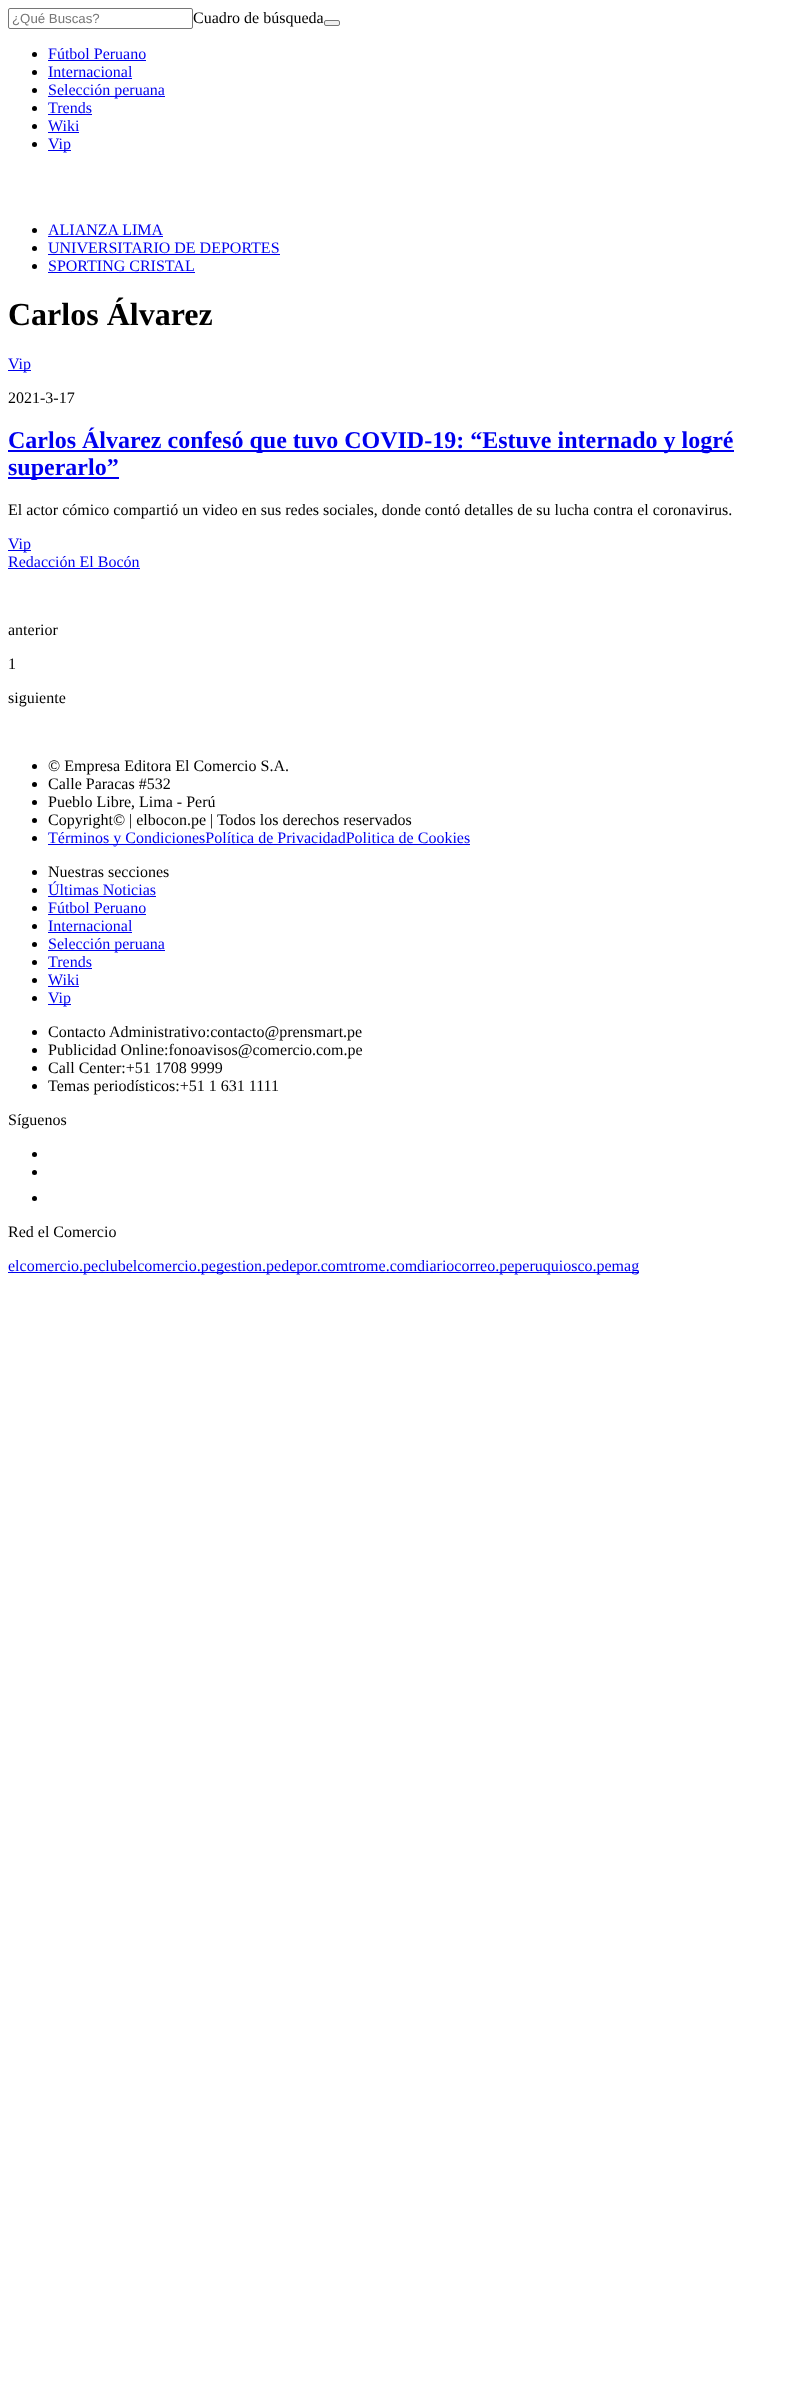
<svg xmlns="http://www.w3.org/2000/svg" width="809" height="2387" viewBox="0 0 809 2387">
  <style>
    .t1 { font: 13.25px Liberation Sans; fill: #757575; }
    .t2 { font: 16px Liberation Serif; fill: #000; }
    .t3 { font: 16px Liberation Serif; fill: #00e; }
    .t4 { font: bold 32px Liberation Serif; fill: #000; }
    .t5 { font: bold 24px Liberation Serif; fill: #00e; }
  </style>
  <rect width="100%" height="100%" fill="#fff"/>
  <rect x="8.5" y="8.5" width="184" height="20" rx="1.5" fill="none" stroke="#767676"/>
  <text x="12" y="23" class="t1">¿Qué Buscas?</text>
  <text x="193" y="23" class="t2">Cuadro de búsqueda</text>
  <rect x="324.5" y="20.5" width="15" height="5" rx="1.5" fill="#efefef" stroke="#767676"/>
  <circle cx="34.5" cy="54.5" r="2.5" fill="#000"/>
  <text x="48" y="59" class="t3">Fútbol Peruano</text>
  <rect x="48" y="60" width="98" height="1" fill="#00e"/>
  <circle cx="34.5" cy="72.5" r="2.5" fill="#000"/>
  <text x="48" y="77" class="t3">Internacional</text>
  <rect x="48" y="78" width="84" height="1" fill="#00e"/>
  <circle cx="34.5" cy="90.5" r="2.5" fill="#000"/>
  <rect x="48" y="96" width="117" height="1" fill="#00e"/>
  <text x="48" y="95" class="t3">Selección peruana</text>
  <circle cx="34.5" cy="108.5" r="2.5" fill="#000"/>
  <text x="48" y="113" class="t3">Trends</text>
  <rect x="48" y="114" width="44" height="1" fill="#00e"/>
  <circle cx="34.5" cy="126.5" r="2.5" fill="#000"/>
  <text x="48" y="131" class="t3">Wiki</text>
  <rect x="48" y="132" width="31" height="1" fill="#00e"/>
  <circle cx="34.5" cy="144.5" r="2.5" fill="#000"/>
  <rect x="48" y="150" width="23" height="1" fill="#00e"/>
  <text x="48" y="149" class="t3">Vip</text>
  <circle cx="34.5" cy="230.5" r="2.5" fill="#000"/>
  <text x="48" y="235" class="t3">ALIANZA LIMA</text>
  <rect x="48" y="236" width="115" height="1" fill="#00e"/>
  <circle cx="34.5" cy="248.5" r="2.5" fill="#000"/>
  <text x="48" y="253" class="t3">UNIVERSITARIO DE DEPORTES</text>
  <rect x="48" y="254" width="232" height="1" fill="#00e"/>
  <circle cx="34.5" cy="266.5" r="2.5" fill="#000"/>
  <text x="48" y="271" class="t3">SPORTING CRISTAL</text>
  <rect x="48" y="272" width="147" height="1" fill="#00e"/>
  <text x="8" y="325" class="t4">Carlos Álvarez</text>
  <rect x="8" y="370" width="23" height="1" fill="#00e"/>
  <text x="8" y="369" class="t3">Vip</text>
  <text x="8" y="403" class="t2">2021-3-17</text>
  <rect x="8" y="450" width="726" height="2" fill="#00e"/>
  <text x="8" y="448" class="t5">Carlos Álvarez confesó que tuvo COVID-19: “Estuve internado y logré</text>
  <rect x="8" y="477" width="111" height="2" fill="#00e"/>
  <text x="8" y="475" class="t5">superarlo”</text>
  <text x="8" y="515" class="t2">El actor cómico compartió un video en sus redes sociales, donde contó detalles de su lucha contra el coronavirus.</text>
  <rect x="8" y="550" width="23" height="1" fill="#00e"/>
  <text x="8" y="549" class="t3">Vip</text>
  <text x="8" y="567" class="t3">Redacción El Bocón</text>
  <rect x="8" y="568" width="132" height="1" fill="#00e"/>
  <text x="8" y="635" class="t2">anterior</text>
  <text x="8" y="669" class="t2">1</text>
  <text x="8" y="703" class="t2">siguiente</text>
  <circle cx="34.5" cy="766.5" r="2.5" fill="#000"/>
  <text x="48" y="771" class="t2">© Empresa Editora El Comercio S.A.</text>
  <circle cx="34.5" cy="784.5" r="2.5" fill="#000"/>
  <text x="48" y="789" class="t2">Calle Paracas #532</text>
  <circle cx="34.5" cy="802.5" r="2.5" fill="#000"/>
  <text x="48" y="807" class="t2">Pueblo Libre, Lima - Perú</text>
  <circle cx="34.5" cy="820.5" r="2.5" fill="#000"/>
  <text x="48" y="825" class="t2">Copyright© | elbocon.pe | Todos los derechos reservados</text>
  <circle cx="34.5" cy="838.5" r="2.5" fill="#000"/>
  <rect x="48" y="844" width="422" height="1" fill="#00e"/>
  <text x="48" y="843" class="t3">Términos y CondicionesPolítica de PrivacidadPolitica de Cookies</text>
  <circle cx="34.5" cy="872.5" r="2.5" fill="#000"/>
  <text x="48" y="877" class="t2">Nuestras secciones</text>
  <circle cx="34.5" cy="890.5" r="2.5" fill="#000"/>
  <text x="48" y="895" class="t3">Últimas Noticias</text>
  <rect x="48" y="896" width="108" height="1" fill="#00e"/>
  <circle cx="34.5" cy="908.5" r="2.5" fill="#000"/>
  <text x="48" y="913" class="t3">Fútbol Peruano</text>
  <rect x="48" y="914" width="98" height="1" fill="#00e"/>
  <circle cx="34.5" cy="926.5" r="2.5" fill="#000"/>
  <text x="48" y="931" class="t3">Internacional</text>
  <rect x="48" y="932" width="84" height="1" fill="#00e"/>
  <circle cx="34.5" cy="944.5" r="2.5" fill="#000"/>
  <rect x="48" y="950" width="117" height="1" fill="#00e"/>
  <text x="48" y="949" class="t3">Selección peruana</text>
  <circle cx="34.5" cy="962.5" r="2.5" fill="#000"/>
  <text x="48" y="967" class="t3">Trends</text>
  <rect x="48" y="968" width="44" height="1" fill="#00e"/>
  <circle cx="34.5" cy="980.5" r="2.5" fill="#000"/>
  <text x="48" y="985" class="t3">Wiki</text>
  <rect x="48" y="986" width="31" height="1" fill="#00e"/>
  <circle cx="34.5" cy="998.5" r="2.5" fill="#000"/>
  <rect x="48" y="1004" width="23" height="1" fill="#00e"/>
  <text x="48" y="1003" class="t3">Vip</text>
  <circle cx="34.5" cy="1032.5" r="2.5" fill="#000"/>
  <text x="48" y="1037" class="t2">Contacto Administrativo:contacto@prensmart.pe</text>
  <circle cx="34.5" cy="1050.5" r="2.5" fill="#000"/>
  <text x="48" y="1055" class="t2">Publicidad Online:fonoavisos@comercio.com.pe</text>
  <circle cx="34.5" cy="1068.5" r="2.5" fill="#000"/>
  <text x="48" y="1073" class="t2">Call Center:+51 1708 9999</text>
  <circle cx="34.5" cy="1086.5" r="2.5" fill="#000"/>
  <text x="48" y="1091" class="t2">Temas periodísticos:+51 1 631 1111</text>
  <text x="8" y="1125" class="t2">Síguenos</text>
  <circle cx="34.5" cy="1154.5" r="2.5" fill="#000"/>
  <circle cx="34.5" cy="1172.5" r="2.5" fill="#000"/>
  <circle cx="34.5" cy="1198.5" r="2.5" fill="#000"/>
  <text x="8" y="1237" class="t2">Red el Comercio</text>
  <rect x="8" y="1272" width="340" height="1" fill="#00e"/>
  <text x="8" y="1271" class="t3">elcomercio.peclubelcomercio.pegestion.pedepor.comtrome.com</text>
  <rect x="348" y="1272" width="291" height="1" fill="#00e"/>
  <text x="417" y="1271" class="t3">diariocorreo.peperuquiosco.pemag</text>
</svg>
